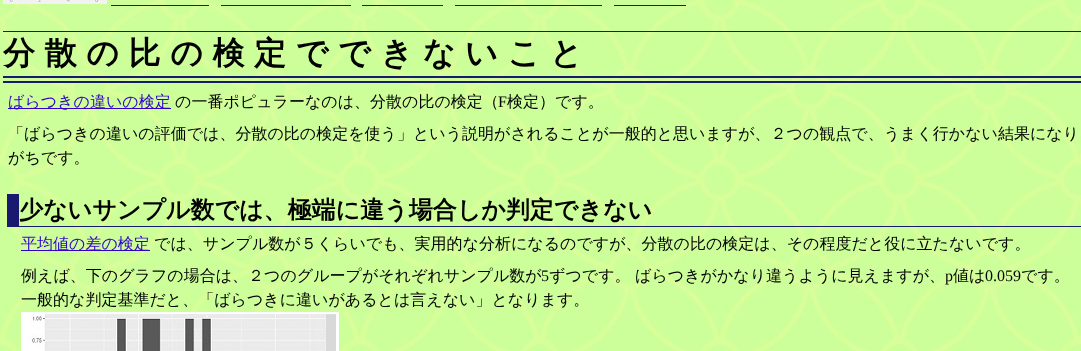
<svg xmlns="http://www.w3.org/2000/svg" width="1081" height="351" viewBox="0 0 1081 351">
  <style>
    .t1 { font: bold 32px WenQuanYi Zen Hei; letter-spacing: 9.6px; fill: #000; }
    .t2 { font: 500 16px WenQuanYi Zen Hei; fill: #30c; }
    .t3 { font: 500 16px WenQuanYi Zen Hei; fill: #000; }
    .t4 { font: 16px Liberation Serif; fill: #000; }
    .t5 { font: bold 24px WenQuanYi Zen Hei; fill: #000; }
  </style>
  <rect width="100%" height="100%" fill="#fff"/>
  <image x="0" y="0" width="1081" height="351" href="images/1.png"/>
  <image x="3" y="0" width="104" height="4" href="images/2.png"/>
  <rect x="111" y="5" width="98" height="1" fill="#30c"/>
  <rect x="221" y="5" width="130" height="1" fill="#30c"/>
  <rect x="362" y="5" width="81" height="1" fill="#30c"/>
  <rect x="455" y="5" width="147" height="1" fill="#30c"/>
  <rect x="614" y="5" width="72" height="1" fill="#30c"/>
  <rect x="3" y="31" width="1078" height="1" fill="#191970"/>
  <rect x="3" y="76" width="1078" height="2" fill="#191970"/>
  <rect x="3" y="81" width="1078" height="2" fill="#191970"/>
  <text x="3" y="64" class="t1">分散の比の検定でできないこと</text>
  <rect x="8" y="108" width="163" height="1" fill="#30c"/>
  <text x="8" y="107" class="t2">ばらつきの違いの検定</text>
  <text x="175" y="107" class="t3">の一番ポピュラーなのは、分散の比の検定（</text>
  <text x="498" y="107" class="t4">F</text>
  <text x="507" y="107" class="t3">検定）です。</text>
  <text x="8" y="139" class="t3">「ばらつきの違いの評価では、分散の比の検定を使う」という説明がされることが一般的と思いますが、２つの観点で、うまく行かない結果になり</text>
  <text x="8" y="163" class="t3">がちです。</text>
  <rect x="19" y="226" width="1062" height="1" fill="#191970"/>
  <rect x="7" y="194" width="12" height="33" fill="#191970"/>
  <text x="19" y="218" class="t5">少ないサンプル数では、極端に違う場合しか判定できない</text>
  <rect x="21" y="250" width="129" height="1" fill="#30c"/>
  <text x="21" y="249" class="t2">平均値の差の検定</text>
  <text x="154" y="249" class="t3">では、サンプル数が５くらいでも、実用的な分析になるのですが、分散の比の検定は、その程度だと役に立たないです。</text>
  <text x="21" y="281" class="t3">例えば、下のグラフの場合は、２つのグループがそれぞれサンプル数が</text>
  <text x="541" y="281" class="t4">5</text>
  <text x="549" y="281" class="t3">ずつです。</text>
  <text x="635" y="281" class="t3">ばらつきがかなり違うように見えますが、</text>
  <text x="945" y="281" class="t4">p</text>
  <text x="953" y="281" class="t3">値は</text>
  <text x="985" y="281" class="t4">0.059</text>
  <text x="1021" y="281" class="t3">です。</text>
  <text x="21" y="305" class="t3">一般的な判定基準だと、「ばらつきに違いがあるとは言えない」となります。</text>
  <image x="21" y="312" width="318" height="39" href="images/3.png"/>
</svg>
